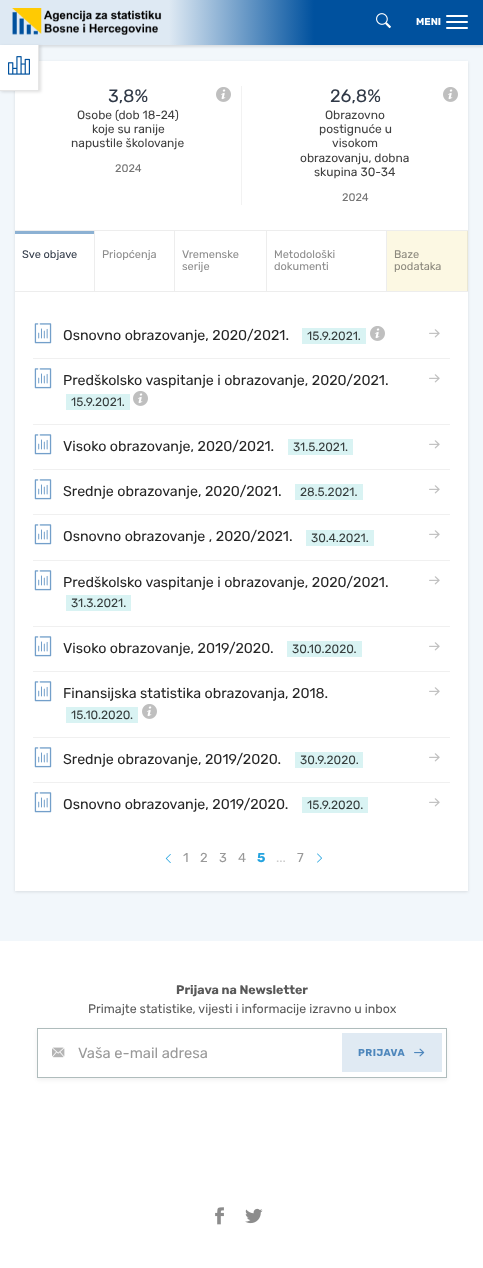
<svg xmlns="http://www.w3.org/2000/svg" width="483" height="1268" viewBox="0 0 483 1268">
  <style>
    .t1 { font: bold 10px Rubik; fill: #fff; }
    .t2 { font: 18px Rubik; fill: #303947; }
    .t3 { font: 12px Rubik; fill: #404040; }
    .t4 { font: 11px Rubik; fill: #737373; }
    .t5 { font: 11px Rubik; fill: #303947; }
    .t6 { font: 11px Rubik; fill: #8c8c8c; }
    .t7 { font: 11px Rubik; fill: #8b887d; }
    .t8 { font: 14.25px Rubik; fill: #262626; }
    .t9 { font: 12px Rubik; fill: #363d3d; }
    .t10 { font: 13px Rubik; fill: #999; }
    .t11 { font: bold 13px Rubik; fill: #24a3df; }
    .t12 { font: 13px Rubik; fill: #ccc; }
    .t13 { font: bold 12.4px Rubik; fill: #595959; }
    .t14 { font: 12.4px Rubik; fill: #595959; }
    .t15 { font: 14.75px Rubik; fill: #999; }
    .t16 { font: bold 10px Rubik; letter-spacing: 0.5px; fill: #4e87bc; }
  </style>
  <defs>
    <linearGradient id="g1" gradientUnits="userSpaceOnUse" x1="0" y1="23" x2="483" y2="22"><stop offset="0.35" stop-color="#dee9f3"/><stop offset="0.65" stop-color="#00519e"/></linearGradient>
    <clipPath id="clip1"><path d="M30 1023H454V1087H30ZM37 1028H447V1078H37Z" clip-rule="evenodd"/></clipPath>
  </defs>
  <rect width="100%" height="100%" fill="#f2f7fb"/>
  <rect x="0" y="2" width="483" height="45" fill="#0000001a" filter="blur(1px)"/>
  <rect x="0" y="0" width="483" height="45" fill="url(#g1)"/>
  <image x="12" y="8" width="150" height="27" href="images/1.png"/>
  <image x="376" y="13" width="15" height="16" href="images/2.png"/>
  <text x="416" y="25" class="t1">MENI</text>
  <rect x="446" y="15" width="22" height="2" rx="1" fill="#fff"/>
  <rect x="446" y="21" width="22" height="2" rx="1" fill="#fff"/>
  <rect x="446" y="27" width="22" height="2" rx="1" fill="#fff"/>
  <rect x="15" y="62" width="453" height="830" fill="#0000001a" filter="blur(1.5px)"/>
  <rect x="15" y="61" width="453" height="830" fill="#fff"/>
  <rect x="1" y="46" width="40" height="46" fill="#0000001f" filter="blur(1.5px)"/>
  <rect x="0" y="45" width="39" height="46" fill="#fff"/>
  <path d="M39 45V91L38 90V45Z" fill="#e6e6e6"/>
  <path d="M39 91H-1V90H38Z" fill="#0000001a"/>
  <image x="8" y="56" width="22" height="19" href="images/3.png"/>
  <text x="108" y="102" class="t2">3,8%</text>
  <image x="216" y="87" width="15" height="15" href="images/4.png"/>
  <text x="77" y="119" class="t3">Osobe (dob 18-24)</text>
  <text x="92" y="133" class="t3">koje su ranije</text>
  <text x="71" y="147" class="t3">napustile školovanje</text>
  <text x="115" y="172" class="t4">2024</text>
  <rect x="241" y="86" width="1" height="119" fill="#f2f2f2"/>
  <text x="330" y="102" class="t2">26,8%</text>
  <image x="443" y="87" width="15" height="15" href="images/4.png"/>
  <text x="325" y="119" class="t3">Obrazovno</text>
  <text x="319" y="133" class="t3">postignuće u</text>
  <text x="332" y="147" class="t3">visokom</text>
  <text x="300" y="162" class="t3">obrazovanju, dobna</text>
  <text x="314" y="176" class="t3">skupina 30-34</text>
  <text x="342" y="201" class="t4">2024</text>
  <rect x="15" y="230" width="453" height="1" fill="#ededed"/>
  <rect x="15" y="291" width="453" height="1" fill="#ededed"/>
  <rect x="94" y="231" width="1" height="60" fill="#ededed"/>
  <rect x="15" y="231" width="79" height="3" fill="#8cb1d3"/>
  <text x="22" y="258" class="t5">Sve objave</text>
  <rect x="174" y="231" width="1" height="60" fill="#ededed"/>
  <text x="102" y="258" class="t6">Priopćenja</text>
  <rect x="266" y="231" width="1" height="60" fill="#ededed"/>
  <text x="182" y="258" class="t6">Vremenske</text>
  <text x="182" y="270" class="t6">serije</text>
  <rect x="386" y="231" width="1" height="60" fill="#ededed"/>
  <text x="274" y="258" class="t6">Metodološki</text>
  <text x="274" y="270" class="t6">dokumenti</text>
  <rect x="387" y="231" width="80" height="60" fill="#fcf8e3"/>
  <rect x="467" y="231" width="1" height="60" fill="#eae7d3"/>
  <text x="394" y="258" class="t7">Baze</text>
  <text x="394" y="270" class="t7">podataka</text>
  <image x="34" y="323" width="18" height="21" href="images/5.png"/>
  <text x="63" y="340" class="t8">Osnovno obrazovanje, 2020/2021.</text>
  <rect x="302" y="328" width="64" height="16" fill="#d9f3f3"/>
  <text x="307" y="340" class="t9">15.9.2021.</text>
  <image x="370" y="326" width="15" height="15" href="images/4.png"/>
  <image x="429" y="329" width="11" height="9" href="images/6.png"/>
  <rect x="33" y="358" width="417" height="1" fill="#f0f0f0"/>
  <image x="34" y="368" width="18" height="21" href="images/5.png"/>
  <text x="63" y="385" class="t8">Predškolsko vaspitanje i obrazovanje, 2020/2021.</text>
  <image x="429" y="374" width="11" height="9" href="images/6.png"/>
  <rect x="66" y="394" width="64" height="16" fill="#d9f3f3"/>
  <text x="71" y="406" class="t9">15.9.2021.</text>
  <image x="133" y="391" width="15" height="15" href="images/4.png"/>
  <rect x="33" y="424" width="417" height="1" fill="#f0f0f0"/>
  <image x="34" y="434" width="18" height="21" href="images/5.png"/>
  <text x="63" y="451" class="t8">Visoko obrazovanje, 2020/2021.</text>
  <rect x="288" y="439" width="65" height="16" fill="#d9f3f3"/>
  <text x="293" y="451" class="t9">31.5.2021.</text>
  <image x="429" y="440" width="11" height="9" href="images/6.png"/>
  <rect x="33" y="469" width="417" height="1" fill="#f0f0f0"/>
  <image x="34" y="479" width="18" height="21" href="images/5.png"/>
  <text x="63" y="496" class="t8">Srednje obrazovanje, 2020/2021.</text>
  <rect x="295" y="484" width="68" height="16" fill="#d9f3f3"/>
  <text x="300" y="496" class="t9">28.5.2021.</text>
  <image x="429" y="485" width="11" height="9" href="images/6.png"/>
  <rect x="33" y="514" width="417" height="1" fill="#f0f0f0"/>
  <image x="34" y="524" width="18" height="21" href="images/5.png"/>
  <text x="63" y="541" class="t8">Osnovno obrazovanje , 2020/2021.</text>
  <rect x="306" y="530" width="68" height="16" fill="#d9f3f3"/>
  <text x="311" y="542" class="t9">30.4.2021.</text>
  <image x="429" y="530" width="11" height="9" href="images/6.png"/>
  <rect x="33" y="560" width="417" height="1" fill="#f0f0f0"/>
  <image x="34" y="570" width="18" height="21" href="images/5.png"/>
  <text x="63" y="587" class="t8">Predškolsko vaspitanje i obrazovanje, 2020/2021.</text>
  <image x="429" y="576" width="11" height="9" href="images/6.png"/>
  <rect x="66" y="595" width="65" height="16" fill="#d9f3f3"/>
  <text x="71" y="607" class="t9">31.3.2021.</text>
  <rect x="33" y="626" width="417" height="1" fill="#f0f0f0"/>
  <image x="34" y="636" width="18" height="21" href="images/5.png"/>
  <text x="63" y="653" class="t8">Visoko obrazovanje, 2019/2020.</text>
  <rect x="287" y="641" width="75" height="16" fill="#d9f3f3"/>
  <text x="292" y="653" class="t9">30.10.2020.</text>
  <image x="429" y="642" width="11" height="9" href="images/6.png"/>
  <rect x="33" y="671" width="417" height="1" fill="#f0f0f0"/>
  <image x="34" y="681" width="18" height="21" href="images/5.png"/>
  <text x="63" y="698" class="t8">Finansijska statistika obrazovanja, 2018.</text>
  <image x="429" y="687" width="11" height="9" href="images/6.png"/>
  <rect x="66" y="707" width="72" height="16" fill="#d9f3f3"/>
  <text x="71" y="719" class="t9">15.10.2020.</text>
  <image x="142" y="704" width="15" height="15" href="images/4.png"/>
  <rect x="33" y="737" width="417" height="1" fill="#f0f0f0"/>
  <image x="34" y="747" width="18" height="21" href="images/5.png"/>
  <text x="63" y="764" class="t8">Srednje obrazovanje, 2019/2020.</text>
  <rect x="295" y="752" width="68" height="16" fill="#d9f3f3"/>
  <text x="300" y="764" class="t9">30.9.2020.</text>
  <image x="429" y="753" width="11" height="9" href="images/6.png"/>
  <rect x="33" y="782" width="417" height="1" fill="#f0f0f0"/>
  <image x="34" y="792" width="18" height="21" href="images/5.png"/>
  <text x="63" y="809" class="t8">Osnovno obrazovanje, 2019/2020.</text>
  <rect x="302" y="797" width="66" height="16" fill="#d9f3f3"/>
  <text x="307" y="809" class="t9">15.9.2020.</text>
  <image x="429" y="798" width="11" height="9" href="images/6.png"/>
  <image x="165" y="854" width="6" height="9" href="images/7.png"/>
  <text x="183" y="862" class="t10">1</text>
  <text x="200" y="862" class="t10">2</text>
  <text x="219" y="862" class="t10">3</text>
  <text x="238" y="862" class="t10">4</text>
  <text x="257" y="862" class="t11">5</text>
  <text x="276" y="862" class="t12">...</text>
  <text x="297" y="862" class="t10">7</text>
  <image x="317" y="853" width="5" height="10" href="images/8.png"/>
  <rect x="0" y="941" width="483" height="327" fill="#fff"/>
  <text x="176" y="994" class="t13">Prijava na Newsletter</text>
  <text x="88" y="1013" class="t14">Primajte statistike, vijesti i informacije izravno u inbox</text>
  <g clip-path="url(#clip1)">
    <rect x="37" y="1030" width="410" height="50" fill="#0000000f" filter="blur(2px)"/>
  </g>
  <rect x="37.5" y="1028.5" width="409" height="49" fill="none" stroke="#afbcbc"/>
  <image x="52" y="1047" width="13" height="11" href="images/9.png"/>
  <text x="78" y="1058" class="t15">Vaša e-mail adresa</text>
  <rect x="342" y="1033" width="100" height="39" fill="#e0eaf3"/>
  <text x="358" y="1056" class="t16">PRIJAVA</text>
  <image x="414" y="1048" width="11" height="9" href="images/10.png"/>
  <image x="215" y="1207" width="9" height="18" href="images/11.png"/>
  <image x="245" y="1208" width="18" height="16" href="images/12.png"/>
</svg>
